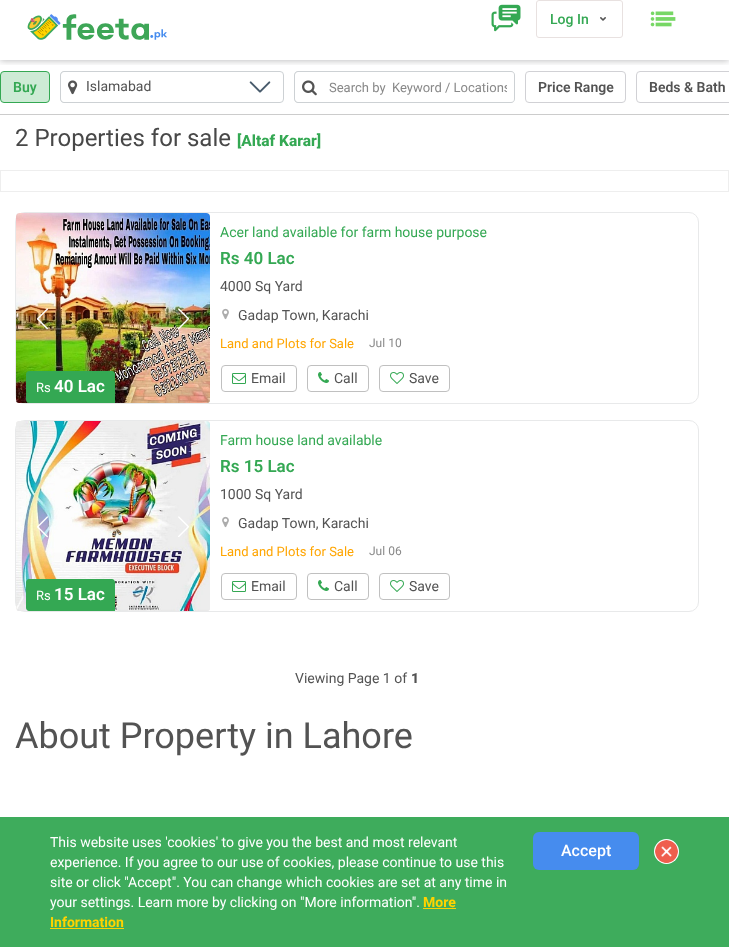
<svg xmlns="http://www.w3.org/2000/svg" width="729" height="947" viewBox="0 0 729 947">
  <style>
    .t1 { font: 500 14px Roboto; fill: #34a853; }
    .t2 { font: 600 14px Roboto; fill: #34a853; }
    .t3 { font: 14px Roboto; fill: #535353; }
    .t4 { font: 13px Roboto; fill: #888; }
    .t5 { font: 600 14px Roboto; fill: #535353; }
    .t6 { font: 24px Roboto; fill: #484848; }
    .t7 { font: 800 15.5px Roboto; fill: #34a853; }
    .t8 { font: 14px Roboto; fill: #34a853; }
    .t9 { font: 600 17px Roboto; fill: #34a853; }
    .t10 { font: 13px Roboto; fill: #ffa500; }
    .t11 { font: 12px Roboto; fill: #888; }
    .t12 { font: 13px Roboto; fill: #fff; }
    .t13 { font: 600 17px Roboto; fill: #fff; }
    .t14 { font: 800 14px Roboto; fill: #535353; }
    .t15 { font: 36px Roboto; fill: #535353; }
    .t16 { font: 14px Roboto; fill: #fff; }
    .t17 { font: bold 14px Roboto; fill: #ffd300; }
    .t18 { font: 500 16px Roboto; fill: #fff; }
  </style>
  <defs>
    <clipPath id="clip1"><rect x="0" y="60" width="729" height="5"/></clipPath>
    <clipPath id="clip2"><rect x="294" y="80" width="213" height="15"/></clipPath>
  </defs>
  <rect width="100%" height="100%" fill="#fff"/>
  <g clip-path="url(#clip1)">
    <rect x="0" y="1" width="729" height="60" fill="#20212447" filter="blur(3px)"/>
  </g>
  <image x="27" y="14" width="140" height="26" href="images/1.png"/>
  <image x="491" y="4" width="30" height="28" href="images/2.png"/>
  <rect x="536.5" y="0.5" width="86" height="37" rx="2.5" fill="none" stroke="#e8e1e0"/>
  <text x="550" y="24" class="t1">Log In</text>
  <image x="600" y="17" width="6" height="4" href="images/3.png"/>
  <image x="650" y="11" width="26" height="16" href="images/4.png"/>
  <rect x="0" y="114" width="729" height="1" fill="#ccc"/>
  <rect x="0.5" y="71.5" width="49" height="31" rx="3.5" fill="#cdebd5" stroke="#34a853"/>
  <text x="13" y="92" class="t2">Buy</text>
  <image x="249" y="81" width="22" height="12" href="images/6.png"/>
  <rect x="60.5" y="71.5" width="223" height="31" rx="3.5" fill="none" stroke="#cdd1d4"/>
  <rect x="60" y="71" width="22" height="32" fill="#fff"/>
  <path d="M64 71H82V103H64C62 103 60 101 60 99V75C60 73 62 71 64 71ZM64 72H82V102H64C62.5 102 61 100.5 61 99V75C61 73.5 62.5 72 64 72Z" fill="#cdd1d4" fill-rule="evenodd"/>
  <image x="68" y="80" width="10" height="15" href="images/5.png"/>
  <text x="86" y="91" class="t3">Islamabad</text>
  <path d="M294 71H511C513 71 515 73 515 75V99C515 101 513 103 511 103H294ZM294 72H511C513 72 514 73 514 75V99C514 101 513 102 511 102H294Z" fill="#cdd1d4" fill-rule="evenodd"/>
  <rect x="294" y="71" width="28" height="32" fill="#fff"/>
  <path d="M298 71H322V103H298C296 103 294 101 294 99V75C294 73 296 71 298 71ZM298 72H322V102H298C296.5 102 295 100.5 295 99V75C295 73.5 296.5 72 298 72Z" fill="#cdd1d4" fill-rule="evenodd"/>
  <image x="302" y="80" width="15" height="16" href="images/7.png"/>
  <g clip-path="url(#clip2)">
    <text x="329" y="92" class="t4" xml:space="preserve">Search by  Keyword / Locations</text>
  </g>
  <rect x="525.5" y="71.5" width="100" height="31" rx="3.5" fill="none" stroke="#d1d1d5"/>
  <text x="538" y="92" class="t5">Price Range</text>
  <rect x="636.5" y="71.5" width="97" height="31" rx="3.5" fill="none" stroke="#d1d1d5"/>
  <text x="649" y="92" class="t5">Beds &amp; Bath</text>
  <text x="15" y="146" class="t6">2 Properties for sale</text>
  <text x="237" y="146" class="t7">[Altaf Karar]</text>
  <rect x="0.5" y="170.5" width="728" height="21" fill="none" stroke="#eee"/>
  <rect x="15.5" y="212.5" width="683" height="191" rx="9.5" fill="none" stroke="#e8e9ea"/>
  <text x="220" y="237" class="t8">Acer land available for farm house purpose</text>
  <text x="220" y="264" class="t9">Rs 40 Lac</text>
  <text x="220" y="291" class="t3">4000 Sq Yard</text>
  <image x="222" y="308" width="7" height="12" href="images/8.png"/>
  <text x="238" y="320" class="t3">Gadap Town, Karachi</text>
  <text x="220" y="348" class="t10">Land and Plots for Sale</text>
  <text x="369" y="347" class="t11">Jul 10</text>
  <rect x="16" y="213" width="194" height="190" rx="3" fill="#efeeec"/>
  <image x="16" y="213" width="194" height="190" href="images/9.png"/>
  <image x="36" y="308" width="12" height="22" href="images/10.png"/>
  <image x="177" y="308" width="13" height="22" href="images/11.png"/>
  <path d="M29 371H112C113.5 371 115 372.5 115 374V403H29C27.5 403 26 401.5 26 400V374C26 372.5 27.5 371 29 371Z" fill="#34a853"/>
  <text x="36" y="392" class="t12">Rs</text>
  <text x="54" y="392" class="t13">40 Lac</text>
  <rect x="221.5" y="365.5" width="75" height="26" rx="3.5" fill="none" stroke="#c0c0c0"/>
  <image x="232" y="373" width="14" height="11" href="images/12.png"/>
  <text x="251" y="383" class="t3">Email</text>
  <rect x="307.5" y="365.5" width="61" height="26" rx="3.5" fill="none" stroke="#c0c0c0"/>
  <image x="318" y="372" width="11" height="11" href="images/13.png"/>
  <text x="334" y="383" class="t3">Call</text>
  <rect x="379.5" y="365.5" width="70" height="26" rx="3.5" fill="none" stroke="#c0c0c0"/>
  <image x="390" y="372" width="14" height="12" href="images/14.png"/>
  <text x="409" y="383" class="t3">Save</text>
  <rect x="15.5" y="420.5" width="683" height="191" rx="9.5" fill="none" stroke="#e8e9ea"/>
  <text x="220" y="445" class="t8">Farm house land available</text>
  <text x="220" y="472" class="t9">Rs 15 Lac</text>
  <text x="220" y="499" class="t3">1000 Sq Yard</text>
  <image x="222" y="516" width="7" height="12" href="images/8.png"/>
  <text x="238" y="528" class="t3">Gadap Town, Karachi</text>
  <text x="220" y="556" class="t10">Land and Plots for Sale</text>
  <text x="369" y="555" class="t11">Jul 06</text>
  <rect x="16" y="421" width="194" height="190" rx="3" fill="#efeeec"/>
  <image x="16" y="421" width="194" height="190" href="images/15.png"/>
  <image x="37" y="516" width="11" height="22" href="images/16.png"/>
  <image x="178" y="516" width="11" height="21" href="images/17.png"/>
  <path d="M29 579H112C113.5 579 115 580.5 115 582V611H29C27.5 611 26 609.5 26 608V582C26 580.5 27.5 579 29 579Z" fill="#34a853"/>
  <text x="36" y="600" class="t12">Rs</text>
  <text x="54" y="600" class="t13">15 Lac</text>
  <rect x="221.5" y="573.5" width="75" height="26" rx="3.5" fill="none" stroke="#c0c0c0"/>
  <image x="232" y="581" width="14" height="11" href="images/12.png"/>
  <text x="251" y="591" class="t3">Email</text>
  <rect x="307.5" y="573.5" width="61" height="26" rx="3.5" fill="none" stroke="#c0c0c0"/>
  <image x="318" y="580" width="11" height="11" href="images/13.png"/>
  <text x="334" y="591" class="t3">Call</text>
  <rect x="379.5" y="573.5" width="70" height="26" rx="3.5" fill="none" stroke="#c0c0c0"/>
  <image x="390" y="580" width="14" height="12" href="images/14.png"/>
  <text x="409" y="591" class="t3">Save</text>
  <text x="295" y="683" class="t3">Viewing Page 1 of</text>
  <text x="411" y="683" class="t14">1</text>
  <text x="15" y="748" class="t15">About Property in Lahore</text>
  <rect x="0" y="817" width="729" height="130" fill="#34a853f2"/>
  <text x="50" y="847" class="t16">This website uses 'cookies' to give you the best and most relevant</text>
  <text x="50" y="867" class="t16">experience. If you agree to our use of cookies, please continue to use this</text>
  <text x="50" y="887" class="t16">site or click "Accept". You can change which cookies are set at any time in</text>
  <text x="50" y="907" class="t16">your settings. Learn more by clicking on "More information".</text>
  <text x="423" y="907" class="t17">More</text>
  <rect x="423" y="908" width="33" height="1" fill="#ffd300"/>
  <text x="50" y="927" class="t17">Information</text>
  <rect x="50" y="928" width="74" height="1" fill="#ffd300"/>
  <rect x="533" y="832" width="106" height="38" rx="6" fill="#468cee"/>
  <text x="561" y="856" class="t18">Accept</text>
  <circle cx="666.5" cy="851.5" r="12.5" fill="#fff"/>
  <image x="655" y="840" width="23" height="23" href="images/18.png"/>
</svg>
